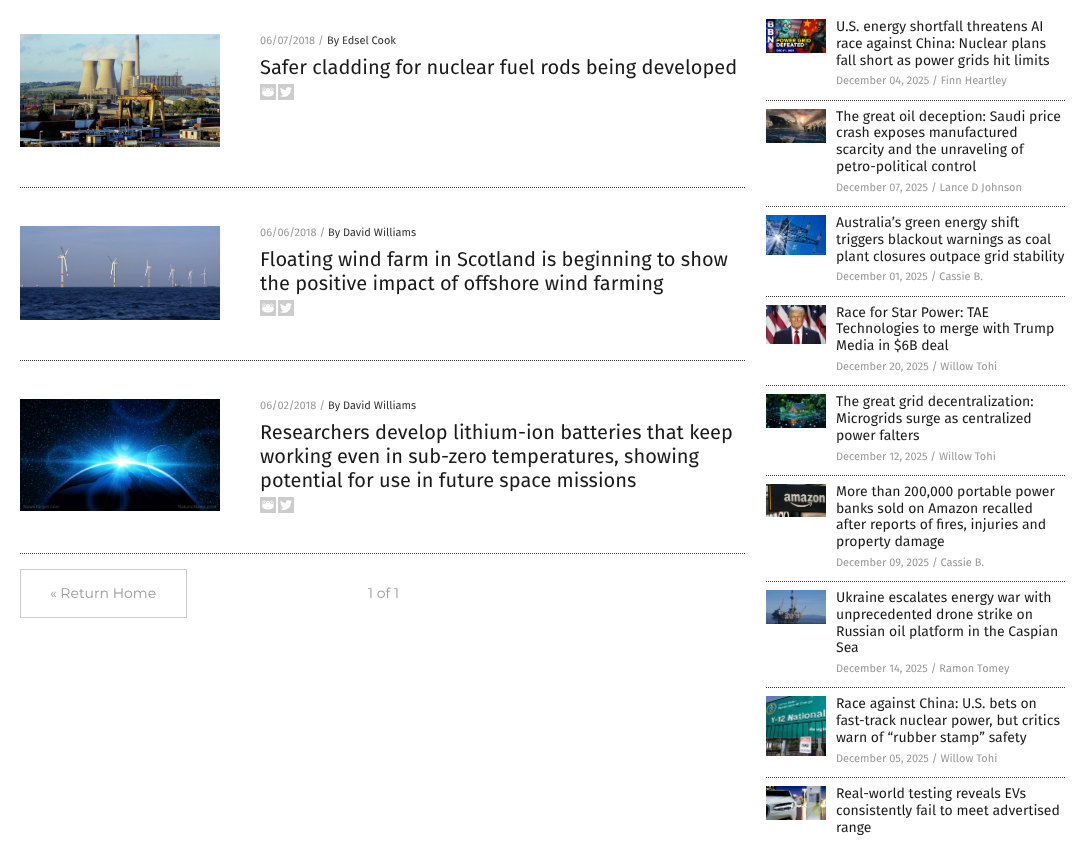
<svg xmlns="http://www.w3.org/2000/svg" width="1086" height="844" viewBox="0 0 1086 844">
  <style>
    .t1 { font: 11px Fira Sans; fill: #999; }
    .t2 { font: 11px Fira Sans; fill: #333; }
    .t3 { font: 20px Fira Sans; fill: #1a1a1a; }
    .t4 { font: 14px Montserrat; fill: #999; }
    .t5 { font: 14px Fira Sans; fill: #1a1a1a; }
  </style>
  <rect width="100%" height="100%" fill="#fff"/>
  <path d="M20 187.5H746" fill="none" stroke="#343434" stroke-dasharray="1 1"/>
  <image x="20" y="34" width="200" height="113" href="images/1.png"/>
  <text x="260" y="44" class="t1">06/07/2018 /</text>
  <text x="327" y="44" class="t2">By Edsel Cook</text>
  <text x="260" y="74" class="t3">Safer cladding for nuclear fuel rods being developed</text>
  <image x="260" y="84" width="16" height="16" href="images/2.png"/>
  <image x="278" y="84" width="16" height="16" href="images/3.png"/>
  <path d="M20 360.5H746" fill="none" stroke="#343434" stroke-dasharray="1 1"/>
  <image x="20" y="226" width="200" height="94" href="images/4.png"/>
  <text x="260" y="236" class="t1">06/06/2018 /</text>
  <text x="328" y="236" class="t2">By David Williams</text>
  <text x="260" y="266" class="t3">Floating wind farm in Scotland is beginning to show</text>
  <text x="260" y="290" class="t3">the positive impact of offshore wind farming</text>
  <image x="260" y="300" width="16" height="16" href="images/2.png"/>
  <image x="278" y="300" width="16" height="16" href="images/3.png"/>
  <path d="M20 553.5H746" fill="none" stroke="#343434" stroke-dasharray="1 1"/>
  <image x="20" y="399" width="200" height="112" href="images/5.png"/>
  <text x="260" y="409" class="t1">06/02/2018 /</text>
  <text x="328" y="409" class="t2">By David Williams</text>
  <text x="260" y="439" class="t3">Researchers develop lithium-ion batteries that keep</text>
  <text x="260" y="463" class="t3">working even in sub-zero temperatures, showing</text>
  <text x="260" y="487" class="t3">potential for use in future space missions</text>
  <image x="260" y="497" width="16" height="16" href="images/2.png"/>
  <image x="278" y="497" width="16" height="16" href="images/3.png"/>
  <rect x="20.5" y="569.5" width="166" height="48" fill="none" stroke="#ccc"/>
  <text x="50" y="598" class="t4">« Return Home</text>
  <text x="368" y="598" class="t4">1 of 1</text>
  <path d="M766 100.5H1066" fill="none" stroke="#343434" stroke-dasharray="1 1"/>
  <image x="766" y="19" width="60" height="34" href="images/6.png"/>
  <text x="836" y="31" class="t5">U.S. energy shortfall threatens AI</text>
  <text x="836" y="48" class="t5">race against China: Nuclear plans</text>
  <text x="836" y="65" class="t5">fall short as power grids hit limits</text>
  <text x="836" y="84" class="t1">December 04, 2025 / Finn Heartley</text>
  <path d="M766 206.5H1066" fill="none" stroke="#343434" stroke-dasharray="1 1"/>
  <image x="766" y="109" width="60" height="34" href="images/7.png"/>
  <text x="836" y="121" class="t5">The great oil deception: Saudi price</text>
  <text x="836" y="137" class="t5">crash exposes manufactured</text>
  <text x="836" y="154" class="t5">scarcity and the unraveling of</text>
  <text x="836" y="171" class="t5">petro-political control</text>
  <text x="836" y="191" class="t1">December 07, 2025 / Lance D Johnson</text>
  <path d="M766 296.5H1066" fill="none" stroke="#343434" stroke-dasharray="1 1"/>
  <image x="766" y="215" width="60" height="40" href="images/8.png"/>
  <text x="836" y="227" class="t5">Australia’s green energy shift</text>
  <text x="836" y="244" class="t5">triggers blackout warnings as coal</text>
  <text x="836" y="261" class="t5">plant closures outpace grid stability</text>
  <text x="836" y="280" class="t1">December 01, 2025 / Cassie B.</text>
  <path d="M766 385.5H1066" fill="none" stroke="#343434" stroke-dasharray="1 1"/>
  <image x="766" y="305" width="60" height="39" href="images/9.png"/>
  <text x="836" y="317" class="t5">Race for Star Power: TAE</text>
  <text x="836" y="333" class="t5">Technologies to merge with Trump</text>
  <text x="836" y="350" class="t5">Media in $6B deal</text>
  <text x="836" y="370" class="t1">December 20, 2025 / Willow Tohi</text>
  <path d="M766 475.5H1066" fill="none" stroke="#343434" stroke-dasharray="1 1"/>
  <image x="766" y="394" width="60" height="34" href="images/10.png"/>
  <text x="836" y="406" class="t5">The great grid decentralization:</text>
  <text x="836" y="423" class="t5">Microgrids surge as centralized</text>
  <text x="836" y="440" class="t5">power falters</text>
  <text x="836" y="460" class="t1">December 12, 2025 / Willow Tohi</text>
  <path d="M766 581.5H1066" fill="none" stroke="#343434" stroke-dasharray="1 1"/>
  <image x="766" y="484" width="60" height="33" href="images/11.png"/>
  <text x="836" y="496" class="t5">More than 200,000 portable power</text>
  <text x="836" y="513" class="t5">banks sold on Amazon recalled</text>
  <text x="836" y="529" class="t5">after reports of fires, injuries and</text>
  <text x="836" y="546" class="t5">property damage</text>
  <text x="836" y="566" class="t1">December 09, 2025 / Cassie B.</text>
  <path d="M766 687.5H1066" fill="none" stroke="#343434" stroke-dasharray="1 1"/>
  <image x="766" y="590" width="60" height="34" href="images/12.png"/>
  <text x="836" y="602" class="t5">Ukraine escalates energy war with</text>
  <text x="836" y="619" class="t5">unprecedented drone strike on</text>
  <text x="836" y="636" class="t5">Russian oil platform in the Caspian</text>
  <text x="836" y="652" class="t5">Sea</text>
  <text x="836" y="672" class="t1">December 14, 2025 / Ramon Tomey</text>
  <path d="M766 777.5H1066" fill="none" stroke="#343434" stroke-dasharray="1 1"/>
  <image x="766" y="696" width="60" height="60" href="images/13.png"/>
  <text x="836" y="708" class="t5">Race against China: U.S. bets on</text>
  <text x="836" y="725" class="t5">fast-track nuclear power, but critics</text>
  <text x="836" y="742" class="t5">warn of “rubber stamp” safety</text>
  <text x="836" y="762" class="t1">December 05, 2025 / Willow Tohi</text>
  <image x="766" y="786" width="60" height="34" href="images/14.png"/>
  <text x="836" y="798" class="t5">Real-world testing reveals EVs</text>
  <text x="836" y="815" class="t5">consistently fail to meet advertised</text>
  <text x="836" y="832" class="t5">range</text>
</svg>
